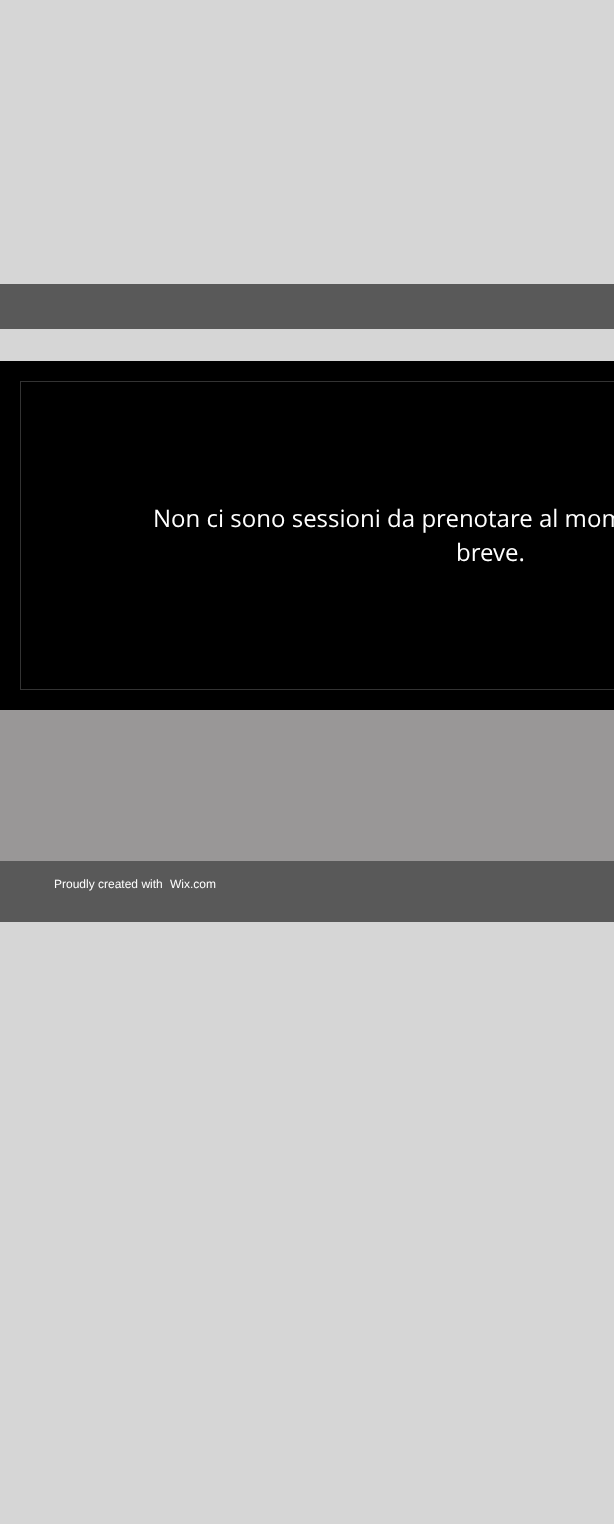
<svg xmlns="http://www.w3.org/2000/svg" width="614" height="1524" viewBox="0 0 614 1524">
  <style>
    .t1 { font: 24px Open Sans; fill: #fff; }
    .t2 { font: 12px Liberation Sans; fill: #fff; }
  </style>
  <rect width="100%" height="100%" fill="#d6d6d6"/>
  <rect x="0" y="284" width="614" height="45" fill="#595959"/>
  <rect x="0" y="361" width="614" height="349" fill="#000"/>
  <rect x="20.5" y="381.5" width="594" height="308" fill="none" stroke="#333"/>
  <text x="153" y="527" class="t1">Non ci sono sessioni da prenotare al mom</text>
  <text x="456" y="561" class="t1">breve.</text>
  <rect x="0" y="710" width="614" height="151" fill="#999797"/>
  <rect x="0" y="861" width="614" height="61" fill="#595959"/>
  <text x="54" y="888" class="t2">Proudly created with</text>
  <text x="170" y="888" class="t2">Wix.com</text>
</svg>
